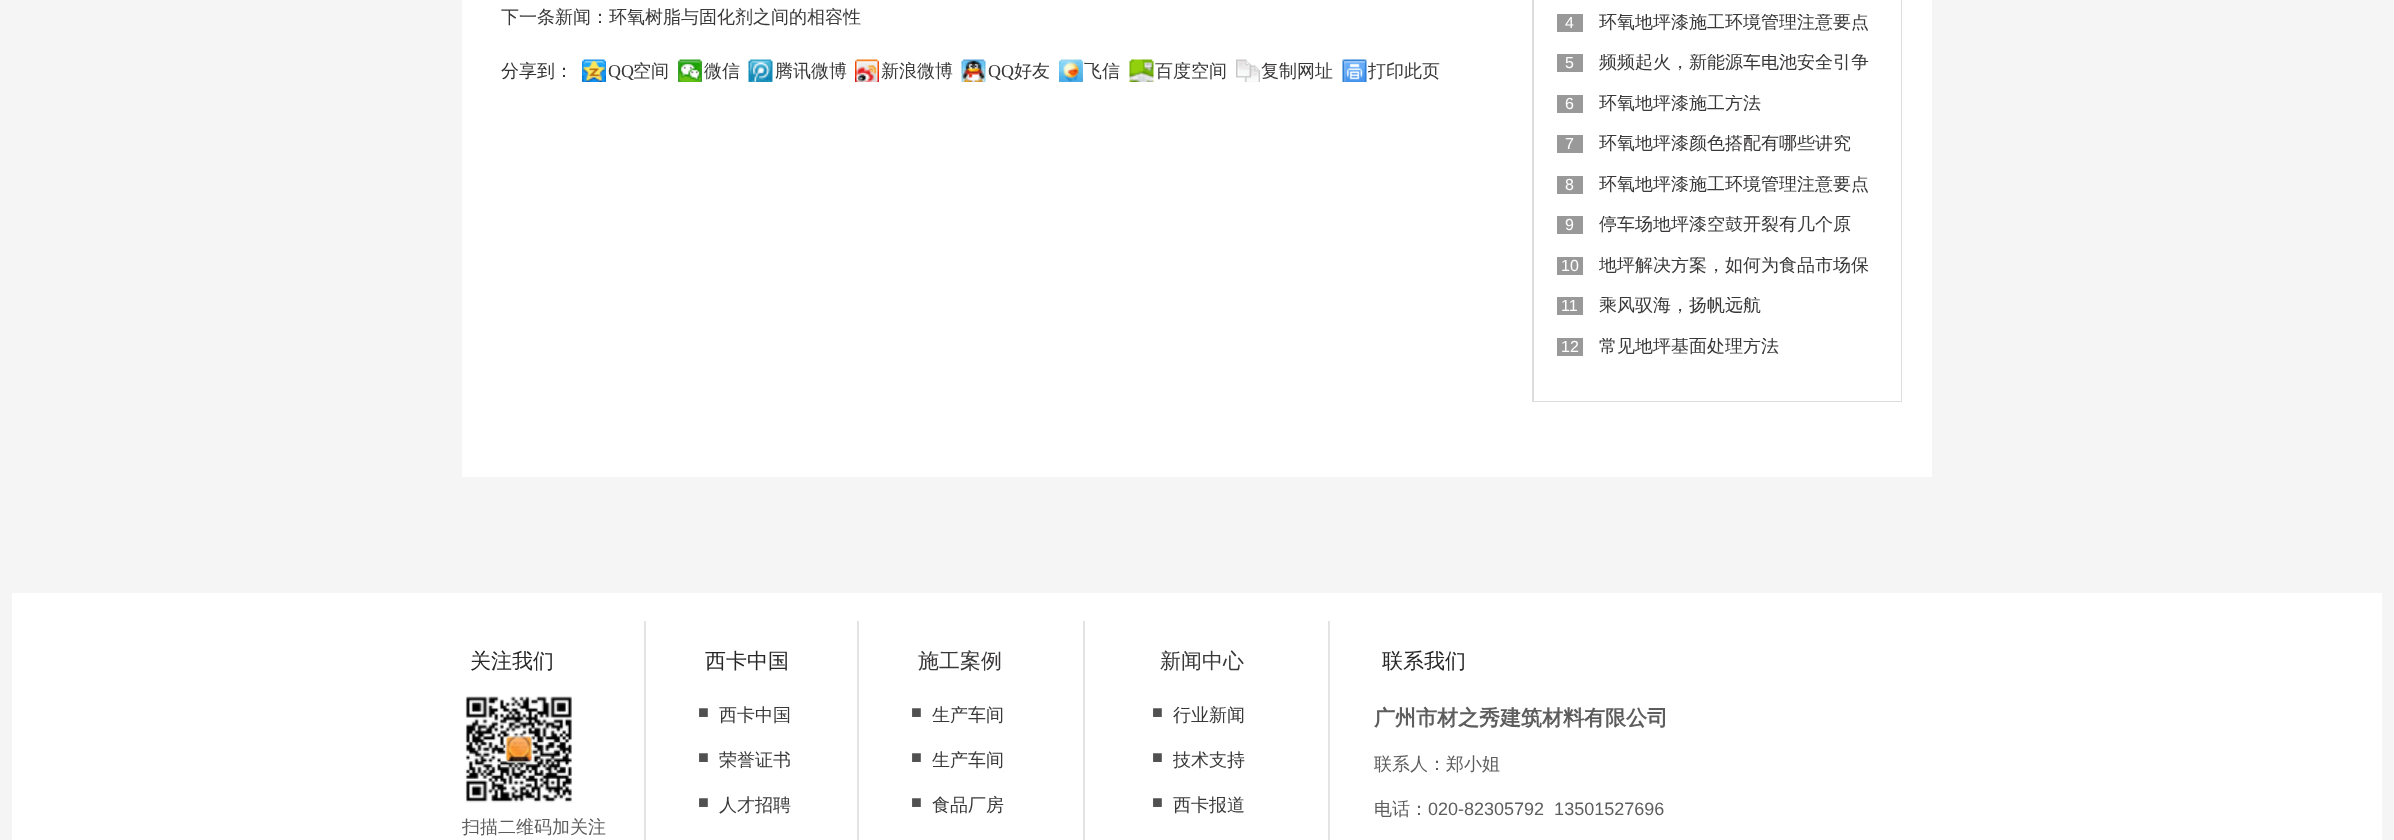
<svg xmlns="http://www.w3.org/2000/svg" width="2394" height="840" viewBox="0 0 2394 840">
  <style>
    .t1 { font: 500 18px WenQuanYi Zen Hei; fill: #393737; }
    .t2 { font: 500 18px WenQuanYi Zen Hei; fill: #333; }
    .t3 { font: 18px Liberation Serif; fill: #393737; }
    .t4 { font: 16px Liberation Sans; fill: #fff; }
    .t5 { font: 500 21px WenQuanYi Zen Hei; fill: #262626; }
    .t6 { font: 500 18px WenQuanYi Zen Hei; fill: #5d5d5d; }
    .t7 { font: 18px Liberation Sans; fill: #505050; }
    .t8 { font: 500 21px WenQuanYi Zen Hei; fill: #393737; }
    .t9 { font: bold 21px WenQuanYi Zen Hei; fill: #5d5d5d; }
    .t10 { font: 18px Liberation Sans; fill: #5d5d5d; }
  </style>
  <defs>
    <clipPath id="clip1"><rect x="1599" y="14" width="278" height="18"/></clipPath>
    <clipPath id="clip2"><rect x="1599" y="54" width="278" height="18"/></clipPath>
    <clipPath id="clip3"><rect x="1599" y="95" width="278" height="18"/></clipPath>
    <clipPath id="clip4"><rect x="1599" y="135" width="278" height="18"/></clipPath>
    <clipPath id="clip5"><rect x="1599" y="176" width="278" height="18"/></clipPath>
    <clipPath id="clip6"><rect x="1599" y="216" width="278" height="18"/></clipPath>
    <clipPath id="clip7"><rect x="1599" y="257" width="278" height="18"/></clipPath>
    <clipPath id="clip8"><rect x="1599" y="297" width="278" height="18"/></clipPath>
    <clipPath id="clip9"><rect x="1599" y="338" width="278" height="18"/></clipPath>
    <clipPath id="clip10"><rect x="1382" y="650" width="502" height="27"/></clipPath>
  </defs>
  <rect width="100%" height="100%" fill="#f5f5f5"/>
  <rect x="462" y="0" width="1470" height="477" fill="#fff"/>
  <text x="501" y="23" class="t1">下一条新闻：环氧树脂与固化剂之间的相容性</text>
  <text x="501" y="77" class="t2">分享到：</text>
  <image x="582" y="59" width="24" height="23" href="images/1.png"/>
  <text x="608" y="77" class="t3">QQ</text>
  <text x="633" y="77" class="t1">空间</text>
  <image x="678" y="59" width="24" height="23" href="images/2.png"/>
  <text x="704" y="77" class="t1">微信</text>
  <image x="748" y="59" width="25" height="23" href="images/3.png"/>
  <text x="775" y="77" class="t1">腾讯微博</text>
  <image x="855" y="59" width="24" height="23" href="images/4.png"/>
  <text x="881" y="77" class="t1">新浪微博</text>
  <image x="961" y="59" width="25" height="23" href="images/5.png"/>
  <text x="988" y="77" class="t3">QQ</text>
  <text x="1014" y="77" class="t1">好友</text>
  <image x="1059" y="59" width="24" height="23" href="images/6.png"/>
  <text x="1084" y="77" class="t1">飞信</text>
  <image x="1129" y="59" width="25" height="23" href="images/7.png"/>
  <text x="1155" y="77" class="t1">百度空间</text>
  <image x="1236" y="59" width="24" height="23" href="images/8.png"/>
  <text x="1261" y="77" class="t1">复制网址</text>
  <image x="1342" y="59" width="25" height="23" href="images/9.png"/>
  <text x="1368" y="77" class="t1">打印此页</text>
  <rect x="1901" y="0" width="1" height="402" fill="#ddd"/>
  <rect x="1532" y="401" width="370" height="1" fill="#ddd"/>
  <rect x="1532" y="0" width="2" height="402" fill="#ddd"/>
  <rect x="1557" y="14" width="26" height="18" fill="#999"/>
  <text x="1565" y="28" class="t4">4</text>
  <g clip-path="url(#clip1)">
    <text x="1599" y="28" class="t1">环氧地坪漆施工环境管理注意要点</text>
  </g>
  <rect x="1557" y="54" width="26" height="18" fill="#999"/>
  <text x="1565" y="68" class="t4">5</text>
  <g clip-path="url(#clip2)">
    <text x="1599" y="68" class="t1">频频起火，新能源车电池安全引争</text>
  </g>
  <rect x="1557" y="95" width="26" height="18" fill="#999"/>
  <text x="1565" y="109" class="t4">6</text>
  <g clip-path="url(#clip3)">
    <text x="1599" y="109" class="t1">环氧地坪漆施工方法</text>
  </g>
  <rect x="1557" y="135" width="26" height="18" fill="#999"/>
  <text x="1565" y="149" class="t4">7</text>
  <g clip-path="url(#clip4)">
    <text x="1599" y="149" class="t1">环氧地坪漆颜色搭配有哪些讲究</text>
  </g>
  <rect x="1557" y="176" width="26" height="18" fill="#999"/>
  <text x="1565" y="190" class="t4">8</text>
  <g clip-path="url(#clip5)">
    <text x="1599" y="190" class="t1">环氧地坪漆施工环境管理注意要点</text>
  </g>
  <rect x="1557" y="216" width="26" height="18" fill="#999"/>
  <text x="1565" y="230" class="t4">9</text>
  <g clip-path="url(#clip6)">
    <text x="1599" y="230" class="t1">停车场地坪漆空鼓开裂有几个原</text>
  </g>
  <rect x="1557" y="257" width="26" height="18" fill="#999"/>
  <text x="1561" y="271" class="t4">10</text>
  <g clip-path="url(#clip7)">
    <text x="1599" y="271" class="t1">地坪解决方案，如何为食品市场保</text>
  </g>
  <rect x="1557" y="297" width="26" height="18" fill="#999"/>
  <text x="1561" y="311" class="t4">11</text>
  <g clip-path="url(#clip8)">
    <text x="1599" y="311" class="t1">乘风驭海，扬帆远航</text>
  </g>
  <rect x="1557" y="338" width="26" height="18" fill="#999"/>
  <text x="1561" y="352" class="t4">12</text>
  <g clip-path="url(#clip9)">
    <text x="1599" y="352" class="t1">常见地坪基面处理方法</text>
  </g>
  <rect x="12" y="593" width="2370" height="247" fill="#fff"/>
  <text x="470" y="668" class="t5">关注我们</text>
  <image x="465" y="696" width="107" height="107" href="images/10.png"/>
  <text x="462" y="833" class="t6">扫描二维码加关注</text>
  <rect x="644" y="621" width="2" height="219" fill="#e4e4e4"/>
  <text x="705" y="668" class="t5">西卡中国</text>
  <text x="698" y="718" class="t7">■</text>
  <text x="719" y="721" class="t1">西卡中国</text>
  <text x="698" y="763" class="t7">■</text>
  <text x="719" y="766" class="t1">荣誉证书</text>
  <text x="698" y="808" class="t7">■</text>
  <text x="719" y="811" class="t1">人才招聘</text>
  <rect x="857" y="621" width="2" height="219" fill="#e4e4e4"/>
  <text x="918" y="668" class="t8">施工案例</text>
  <text x="911" y="718" class="t7">■</text>
  <text x="932" y="721" class="t1">生产车间</text>
  <text x="911" y="763" class="t7">■</text>
  <text x="932" y="766" class="t1">生产车间</text>
  <text x="911" y="808" class="t7">■</text>
  <text x="932" y="811" class="t1">食品厂房</text>
  <rect x="1083" y="621" width="2" height="219" fill="#e4e4e4"/>
  <text x="1160" y="668" class="t8">新闻中心</text>
  <text x="1152" y="718" class="t7">■</text>
  <text x="1173" y="721" class="t1">行业新闻</text>
  <text x="1152" y="763" class="t7">■</text>
  <text x="1173" y="766" class="t1">技术支持</text>
  <text x="1152" y="808" class="t7">■</text>
  <text x="1173" y="811" class="t1">西卡报道</text>
  <rect x="1328" y="621" width="2" height="219" fill="#e4e4e4"/>
  <g clip-path="url(#clip10)">
    <text x="1382" y="668" class="t5">联系我们</text>
  </g>
  <text x="1374" y="725" class="t9">广州市材之秀建筑材料有限公司</text>
  <text x="1374" y="770" class="t6">联系人：郑小姐</text>
  <text x="1374" y="815" class="t6">电话：</text>
  <text x="1428" y="815" class="t10" xml:space="preserve">020-82305792  13501527696</text>
</svg>
